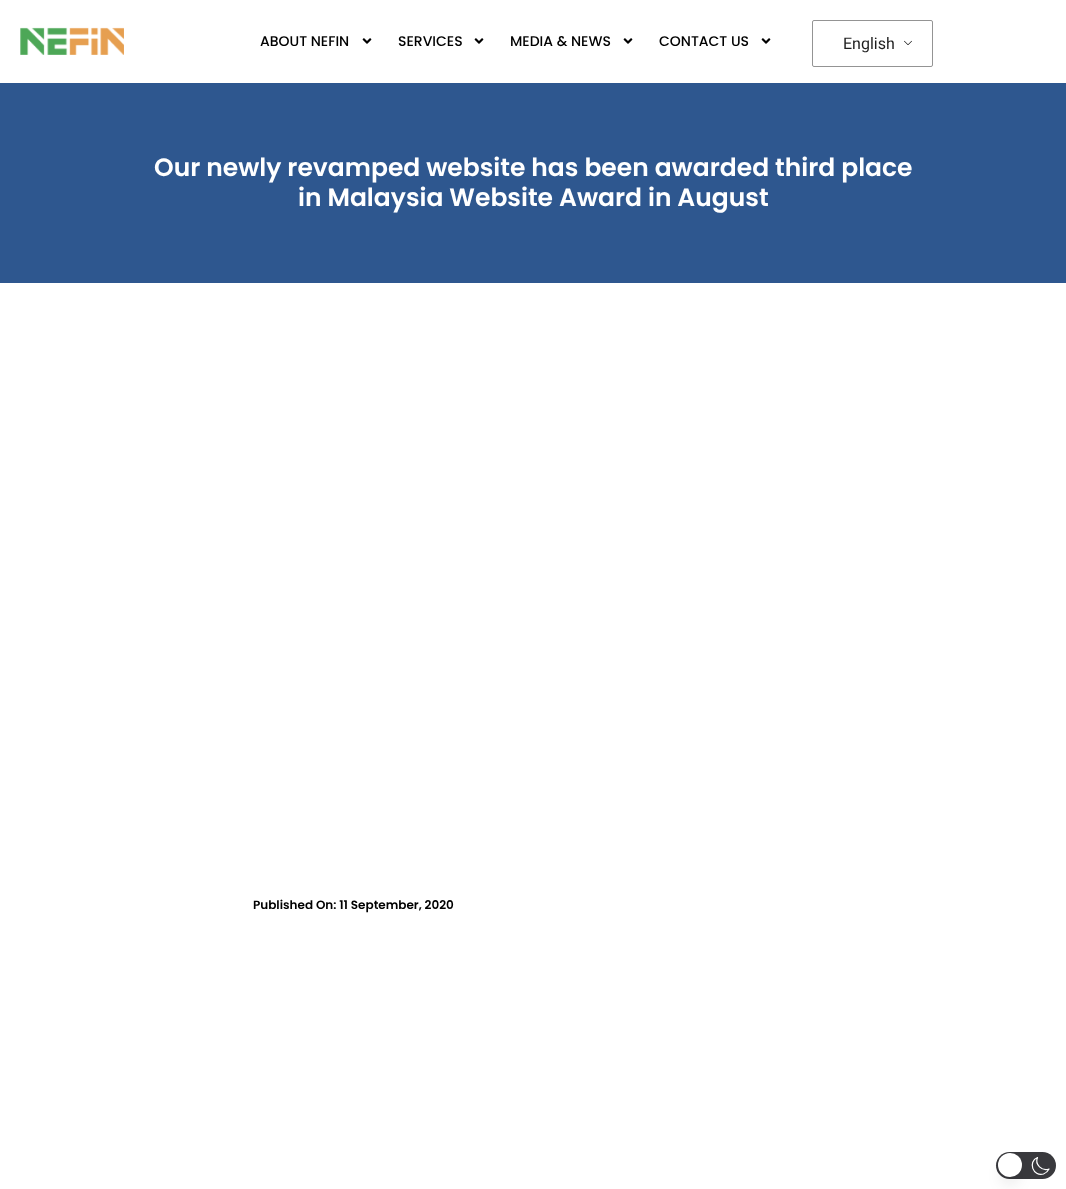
<svg xmlns="http://www.w3.org/2000/svg" width="1066" height="1189" viewBox="0 0 1066 1189">
  <style>
    .t1 { font: 500 14px Poppins; fill: #000; }
    .t2 { font: 16px Roboto; fill: #1e1e1e; }
    .t3 { font: 600 25px Poppins; fill: #fff; }
    .t4 { font: 600 12px Poppins; fill: #000; }
  </style>
  <rect width="100%" height="100%" fill="#fff"/>
  <image x="20" y="27" width="104" height="28" href="images/1.png"/>
  <text x="260" y="46" class="t1">ABOUT NEFIN</text>
  <image x="362" y="38" width="10" height="6" href="images/2.png"/>
  <text x="398" y="46" class="t1">SERVICES</text>
  <image x="474" y="38" width="10" height="6" href="images/2.png"/>
  <text x="510" y="46" class="t1">MEDIA &amp; NEWS</text>
  <image x="623" y="38" width="10" height="6" href="images/2.png"/>
  <text x="659" y="46" class="t1">CONTACT US</text>
  <image x="761" y="38" width="10" height="6" href="images/2.png"/>
  <image x="904" y="40" width="8" height="5" href="images/3.png"/>
  <rect x="812.5" y="20.5" width="120" height="46" rx="1.5" fill="none" stroke="#949494"/>
  <text x="843" y="49" class="t2">English</text>
  <rect x="0" y="83" width="1066" height="200" fill="#2e578f"/>
  <text x="154" y="176" class="t3">Our newly revamped website has been awarded third place</text>
  <text x="298" y="206" class="t3">in Malaysia Website Award in August</text>
  <text x="253" y="909" class="t4">Published On: 11 September, 2020</text>
  <rect x="996" y="1152" width="60" height="27" rx="13.5" fill="#39393d"/>
  <image x="1017" y="1173" width="1" height="1" href="images/4.png"/>
  <path d="M1049 1169C1042 1171.5 1034.5 1164.5 1037.5 1157.5C1027.5 1161.5 1033 1177 1043.5 1174C1046 1173 1048 1171 1049 1169Z" fill="none" stroke="#fff" stroke-width="1.2" stroke-linecap="round" stroke-linejoin="round"/>
  <rect x="1001" y="1166" width="18" height="18" rx="9" fill="#0000001a" filter="blur(7.5px)"/>
  <circle cx="1010" cy="1165" r="12" fill="#fff"/>
</svg>
